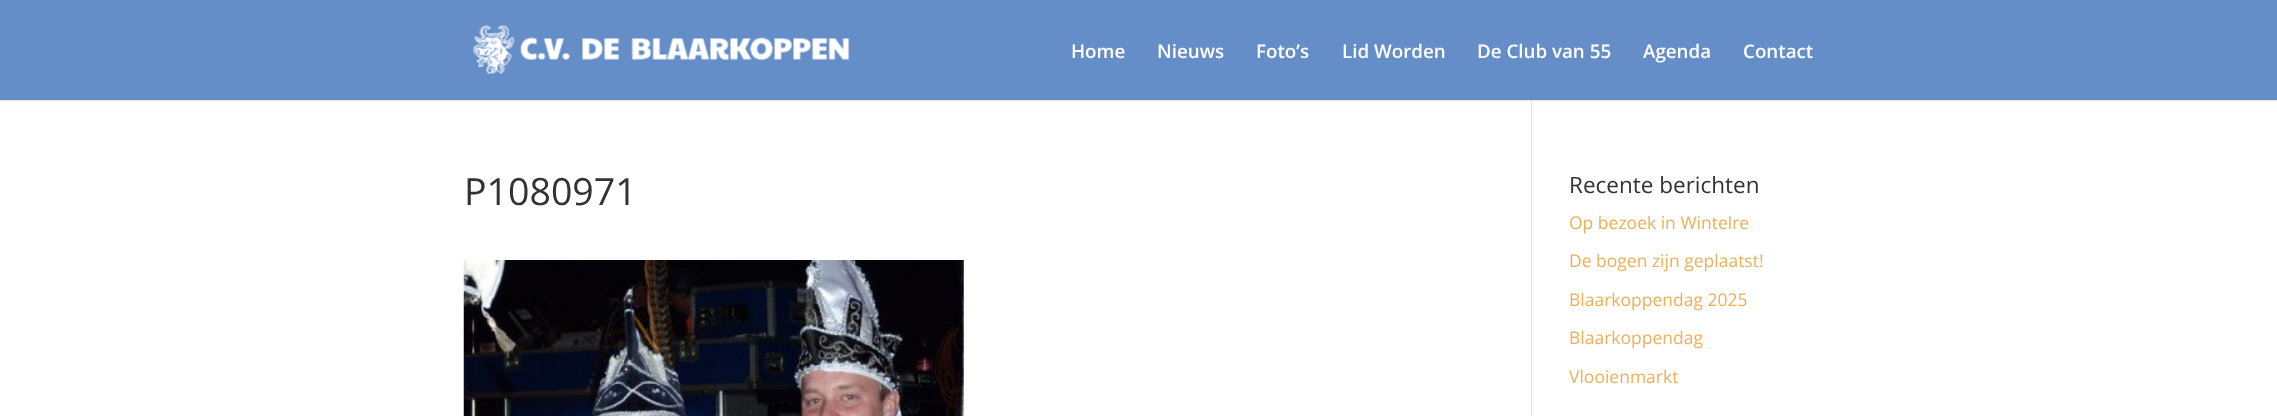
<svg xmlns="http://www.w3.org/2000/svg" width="2277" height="416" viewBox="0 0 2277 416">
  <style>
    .t1 { font: 600 18.75px Open Sans; fill: #fff; }
    .t2 { font: 37.5px Open Sans; fill: #333; }
    .t3 { font: 22.5px Open Sans; fill: #333; }
    .t4 { font: 17.5px Open Sans; fill: #edb059; }
  </style>
  <rect width="100%" height="100%" fill="#fff"/>
  <rect x="1531" y="100" width="1" height="316" fill="#e2e2e2"/>
  <path d="M0 100V101H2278V1V100Z" fill="#0000001a"/>
  <rect x="0" y="0" width="2277" height="100" fill="#658ec9"/>
  <image x="473" y="25" width="377" height="49" href="images/1.png"/>
  <text x="1071" y="58" class="t1">Home</text>
  <text x="1157" y="58" class="t1">Nieuws</text>
  <text x="1256" y="58" class="t1">Foto’s</text>
  <text x="1342" y="58" class="t1">Lid Worden</text>
  <text x="1477" y="58" class="t1">De Club van 55</text>
  <text x="1643" y="58" class="t1">Agenda</text>
  <text x="1743" y="58" class="t1">Contact</text>
  <text x="464" y="205" class="t2">P1080971</text>
  <image x="463" y="260" width="501" height="156" href="images/2.png"/>
  <text x="1569" y="193" class="t3">Recente berichten</text>
  <text x="1569" y="229" class="t4">Op bezoek in Wintelre</text>
  <text x="1569" y="267" class="t4">De bogen zijn geplaatst!</text>
  <text x="1569" y="306" class="t4">Blaarkoppendag 2025</text>
  <text x="1569" y="344" class="t4">Blaarkoppendag</text>
  <text x="1569" y="383" class="t4">Vlooienmarkt</text>
</svg>
